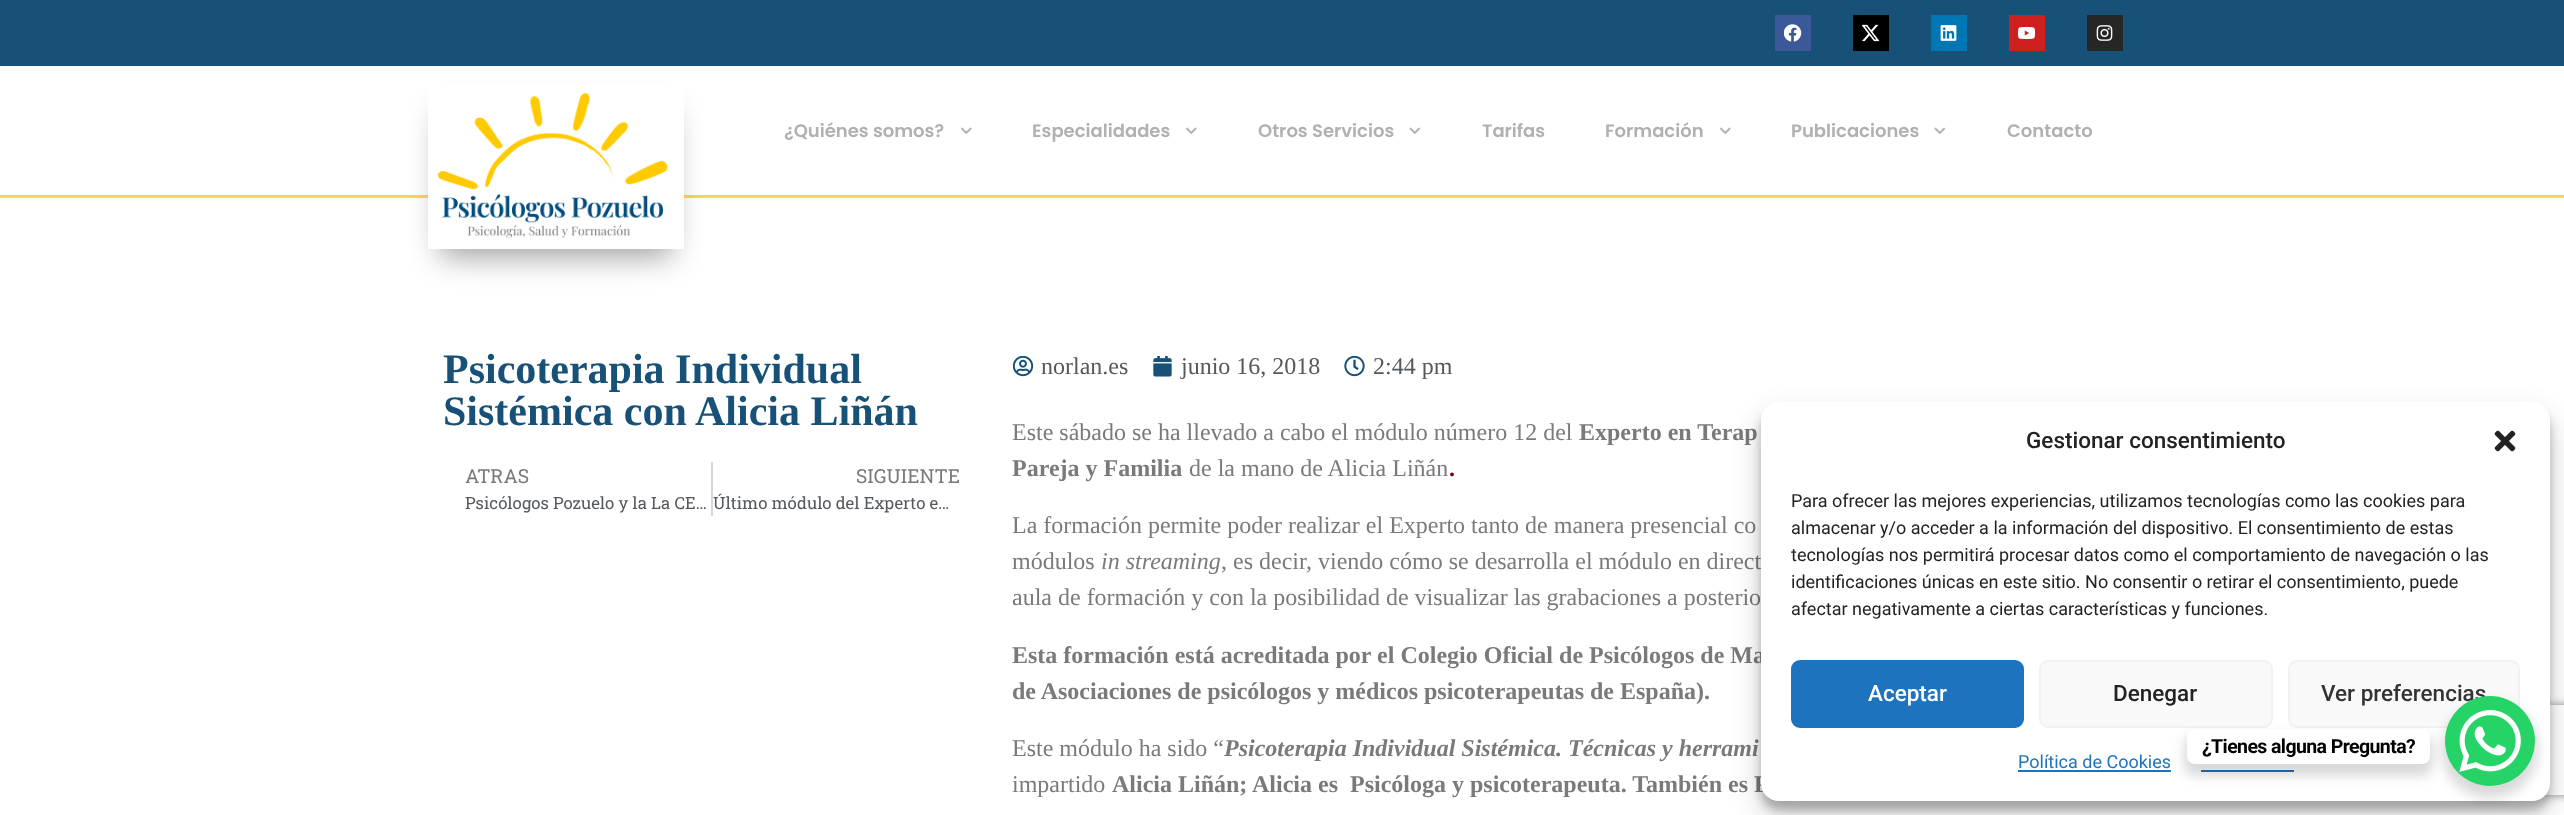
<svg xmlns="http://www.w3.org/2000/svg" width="2564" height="815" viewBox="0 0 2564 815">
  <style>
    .t1 { font: 600 18px Poppins; fill: #b1b1b1; }
    .t2 { font: bold 42px Liberation Serif; fill: #175178; }
    .t3 { font: 19.25px Roboto Slab; fill: #7a7a7a; }
    .t4 { font: 16.75px Roboto Slab; fill: #54595f; }
    .t5 { font: 24px Liberation Serif; fill: #54595f; }
    .t6 { font: 24px Liberation Serif; fill: #7a7a7a; }
    .t7 { font: bold 24px Liberation Serif; fill: #7a7a7a; }
    .t8 { font: bold 24px Liberation Serif; fill: #800000; }
    .t9 { font: italic 24px Liberation Serif; fill: #7a7a7a; }
    .t10 { font: italic bold 24px Liberation Serif; fill: #7a7a7a; }
    .t11 { font: 500 22.5px Roboto; fill: #222; }
    .t12 { font: 18px Roboto; fill: #222; }
    .t13 { font: 500 22.5px Roboto; fill: #fff; }
    .t14 { font: 500 22.5px Roboto; fill: #333; }
    .t15 { font: 18px Roboto; fill: #1e73be; }
    .t16 { font: bold 19.5px Roboto; letter-spacing: -0.6px; fill: #000; }
  </style>
  <defs>
    <clipPath id="clip1"><path d="M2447 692H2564V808H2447ZM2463 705H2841C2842.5 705 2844 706.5 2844 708V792C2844 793.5 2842.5 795 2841 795H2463C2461.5 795 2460 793.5 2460 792V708C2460 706.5 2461.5 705 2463 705Z" clip-rule="evenodd"/></clipPath>
  </defs>
  <rect width="100%" height="100%" fill="#fff"/>
  <rect x="0" y="0" width="2564" height="66" fill="#175178"/>
  <rect x="1775" y="15" width="36" height="36" fill="#3b5998"/>
  <image x="1784" y="24" width="18" height="18" href="images/1.png"/>
  <rect x="1853" y="15" width="36" height="36" fill="#000"/>
  <image x="1862" y="24" width="18" height="18" href="images/2.png"/>
  <rect x="1931" y="15" width="36" height="36" fill="#0077b5"/>
  <image x="1940" y="25" width="17" height="16" href="images/3.png"/>
  <rect x="2009" y="15" width="36" height="36" fill="#cd201f"/>
  <image x="2018" y="27" width="17" height="12" href="images/4.png"/>
  <rect x="2087" y="15" width="36" height="36" fill="#262626"/>
  <image x="2096" y="25" width="17" height="16" href="images/5.png"/>
  <rect x="0" y="195" width="2564" height="3" fill="#ffd557"/>
  <rect x="440" y="113" width="232" height="144" fill="#0000005e" filter="blur(15px)"/>
  <rect x="428" y="84" width="256" height="165" fill="#fff"/>
  <image x="437" y="92" width="231" height="147" href="images/6.png"/>
  <text x="784" y="137" class="t1">¿Quiénes somos?</text>
  <image x="961" y="127" width="11" height="7" href="images/7.png"/>
  <text x="1032" y="137" class="t1">Especialidades</text>
  <image x="1186" y="127" width="11" height="7" href="images/7.png"/>
  <text x="1258" y="137" class="t1">Otros Servicios</text>
  <image x="1409" y="127" width="12" height="7" href="images/8.png"/>
  <text x="1482" y="137" class="t1">Tarifas</text>
  <text x="1605" y="137" class="t1">Formación</text>
  <image x="1720" y="127" width="11" height="7" href="images/7.png"/>
  <text x="1791" y="137" class="t1">Publicaciones</text>
  <image x="1934" y="127" width="12" height="7" href="images/8.png"/>
  <text x="2007" y="137" class="t1">Contacto</text>
  <text x="443" y="383" class="t2">Psicoterapia Individual</text>
  <text x="443" y="425" class="t2">Sistémica con Alicia Liñán</text>
  <text x="465" y="483" class="t3">ATRAS</text>
  <text x="465" y="509" class="t4">Psicólogos Pozuelo y la La CE…</text>
  <rect x="711" y="462" width="2" height="54" fill="#d5d8dc"/>
  <text x="856" y="483" class="t3">SIGUIENTE</text>
  <text x="713" y="509" class="t4">Último módulo del Experto e…</text>
  <image x="1013" y="356" width="21" height="21" href="images/9.png"/>
  <text x="1041" y="374" class="t5">norlan.es</text>
  <image x="1153" y="356" width="19" height="21" href="images/10.png"/>
  <text x="1181" y="374" class="t5">junio 16, 2018</text>
  <image x="1344" y="356" width="21" height="21" href="images/11.png"/>
  <text x="1373" y="374" class="t5">2:44 pm</text>
  <text x="1012" y="440" class="t6">Este sábado se ha llevado a cabo el módulo número 12 del</text>
  <text x="1579" y="440" class="t7">Experto en Terap</text>
  <text x="1012" y="476" class="t7">Pareja y Familia</text>
  <text x="1189" y="476" class="t6">de la mano de Alicia Liñán</text>
  <text x="1449" y="476" class="t8">.</text>
  <text x="1012" y="533" class="t6">La formación permite poder realizar el Experto tanto de manera presencial co</text>
  <text x="1012" y="569" class="t6">módulos</text>
  <text x="1101" y="569" class="t9">in streaming</text>
  <text x="1221" y="569" class="t6">, es decir, viendo cómo se desarrolla el módulo en direct</text>
  <text x="1012" y="605" class="t6">aula de formación y con la posibilidad de visualizar las grabaciones a posterio</text>
  <text x="1012" y="663" class="t7">Esta formación está acreditada por el Colegio Oficial de Psicólogos de Ma</text>
  <text x="1012" y="699" class="t7">de Asociaciones de psicólogos y médicos psicoterapeutas de España).</text>
  <text x="1012" y="756" class="t6">Este módulo ha sido “</text>
  <text x="1224" y="756" class="t10">Psicoterapia Individual Sistémica. Técnicas y herrami</text>
  <text x="1012" y="792" class="t6">impartido</text>
  <text x="1112" y="792" class="t7" xml:space="preserve">Alicia Liñán; Alicia es  Psicóloga y psicoterapeuta. También es P</text>
  <rect x="1761" y="411" width="789" height="399" rx="18" fill="#0000003b" filter="blur(4.5px)"/>
  <rect x="1761" y="417" width="789" height="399" rx="18" fill="#00000030" filter="blur(15px)"/>
  <g clip-path="url(#clip1)">
    <rect x="2460" y="705" width="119" height="90" rx="3" fill="#808080" filter="blur(4px)"/>
  </g>
  <rect x="1761" y="402" width="789" height="399" rx="18" fill="#fff"/>
  <text x="2026" y="448" class="t11">Gestionar consentimiento</text>
  <image x="2494" y="430" width="22" height="22" href="images/12.png"/>
  <text x="1791" y="507" class="t12">Para ofrecer las mejores experiencias, utilizamos tecnologías como las cookies para</text>
  <text x="1791" y="534" class="t12">almacenar y/o acceder a la información del dispositivo. El consentimiento de estas</text>
  <text x="1791" y="561" class="t12">tecnologías nos permitirá procesar datos como el comportamiento de navegación o las</text>
  <text x="1791" y="588" class="t12">identificaciones únicas en este sitio. No consentir o retirar el consentimiento, puede</text>
  <text x="1791" y="615" class="t12">afectar negativamente a ciertas características y funciones.</text>
  <rect x="1792" y="661" width="231" height="66" rx="8" fill="#1e73be" stroke="#1e73be" stroke-width="2"/>
  <text x="1868" y="701" class="t13">Aceptar</text>
  <rect x="2040" y="661" width="232" height="66" rx="8" fill="#f9f9f9" stroke="#f2f2f2" stroke-width="2"/>
  <text x="2113" y="701" class="t11">Denegar</text>
  <rect x="2289" y="661" width="230" height="66" rx="8" fill="#f9f9f9" stroke="#f2f2f2" stroke-width="2"/>
  <text x="2321" y="701" class="t14">Ver preferencias</text>
  <text x="2018" y="768" class="t15">Política de Cookies</text>
  <rect x="2018" y="770" width="153" height="2" fill="#1e73be"/>
  <rect x="2201" y="770" width="93" height="2" fill="#1e73be"/>
  <rect x="2442" y="702" width="96" height="96" rx="48" fill="#00000026" filter="blur(6px)"/>
  <circle cx="2490" cy="741" r="45" fill="#25d366"/>
  <rect x="2184" y="735" width="249" height="41" rx="11" fill="#00000026" filter="blur(6px)"/>
  <rect x="2187" y="729" width="243" height="35" rx="8" fill="#fff"/>
  <text x="2202" y="753" class="t16">¿Tienes alguna Pregunta?</text>
  <image x="2459" y="710" width="62" height="62" href="images/13.png"/>
</svg>
